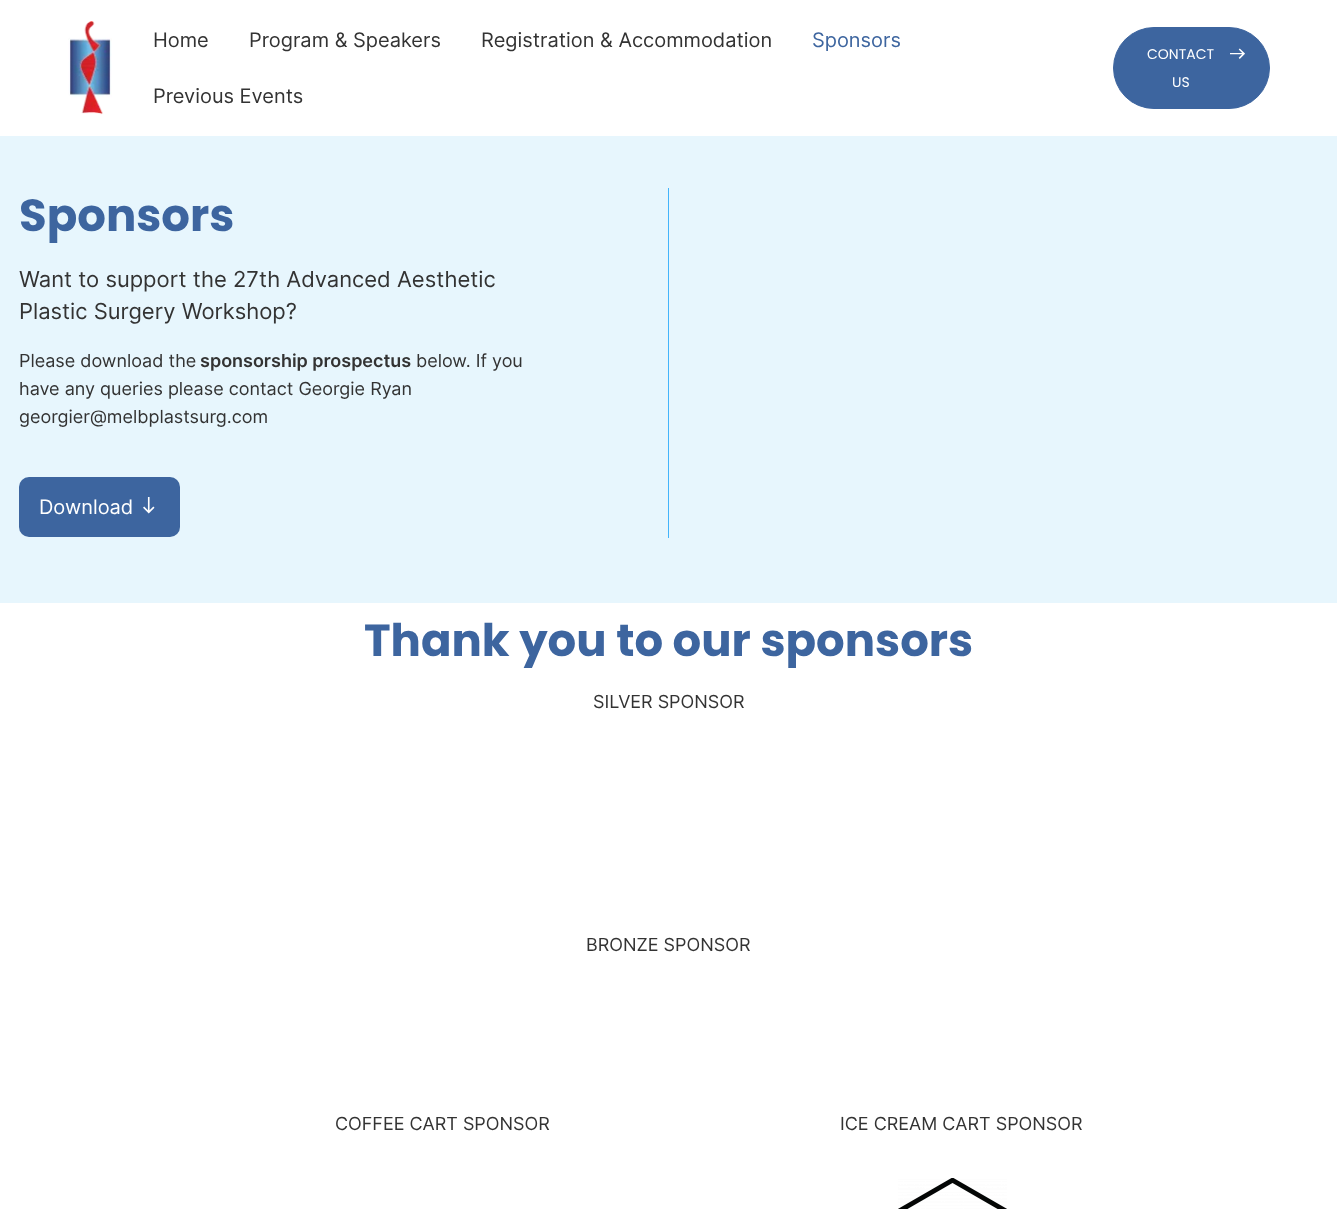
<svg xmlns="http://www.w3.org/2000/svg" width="1337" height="1209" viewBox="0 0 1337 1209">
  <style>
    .t1 { font: 20px Inter; fill: #333; }
    .t2 { font: 20px Inter; fill: #3d659f; }
    .t3 { font: 14px Poppins; fill: #fff; }
    .t4 { font: bold 45px Poppins; fill: #3d659f; }
    .t5 { font: 22px Inter; fill: #333; }
    .t6 { font: 18px Inter; fill: #333; }
    .t7 { font: 600 18px Inter; fill: #333; }
    .t8 { font: 20px Inter; fill: #fff; }
  </style>
  <rect width="100%" height="100%" fill="#fff"/>
  <image x="68" y="21" width="44" height="94" href="images/1.png"/>
  <text x="153" y="47" class="t1">Home</text>
  <text x="249" y="47" class="t1">Program &amp; Speakers</text>
  <text x="481" y="47" class="t1">Registration &amp; Accommodation</text>
  <text x="812" y="47" class="t2">Sponsors</text>
  <text x="153" y="103" class="t1">Previous Events</text>
  <rect x="1113.5" y="27.5" width="156" height="81" rx="40.5" fill="#3d659f" stroke="#3d659f"/>
  <text x="1147" y="59" class="t3">CONTACT</text>
  <text x="1172" y="87" class="t3">US</text>
  <image x="1230" y="48" width="15" height="11" href="images/2.png"/>
  <rect x="0" y="136" width="1337" height="467" fill="#e7f6fd"/>
  <rect x="668" y="188" width="1" height="350" fill="#43b4fb"/>
  <text x="19" y="231" class="t4">Sponsors</text>
  <text x="19" y="287" class="t5">Want to support the 27th Advanced Aesthetic</text>
  <text x="19" y="319" class="t5">Plastic Surgery Workshop?</text>
  <text x="19" y="367" class="t6">Please download the</text>
  <text x="200" y="367" class="t7">sponsorship prospectus</text>
  <text x="416" y="367" class="t6">below. If you</text>
  <text x="19" y="395" class="t6">have any queries please contact Georgie Ryan</text>
  <text x="19" y="423" class="t6">georgier@melbplastsurg.com</text>
  <rect x="19" y="477" width="161" height="60" rx="10" fill="#3d659f"/>
  <text x="39" y="514" class="t8">Download</text>
  <image x="143" y="497" width="12" height="17" href="images/3.png"/>
  <text x="364" y="656" class="t4">Thank you to our sponsors</text>
  <text x="593" y="708" class="t6">SILVER SPONSOR</text>
  <text x="586" y="951" class="t6">BRONZE SPONSOR</text>
  <text x="335" y="1130" class="t6">COFFEE CART SPONSOR</text>
  <text x="840" y="1130" class="t6">ICE CREAM CART SPONSOR</text>
  <image x="898" y="1178" width="109" height="31" href="images/4.png"/>
</svg>
